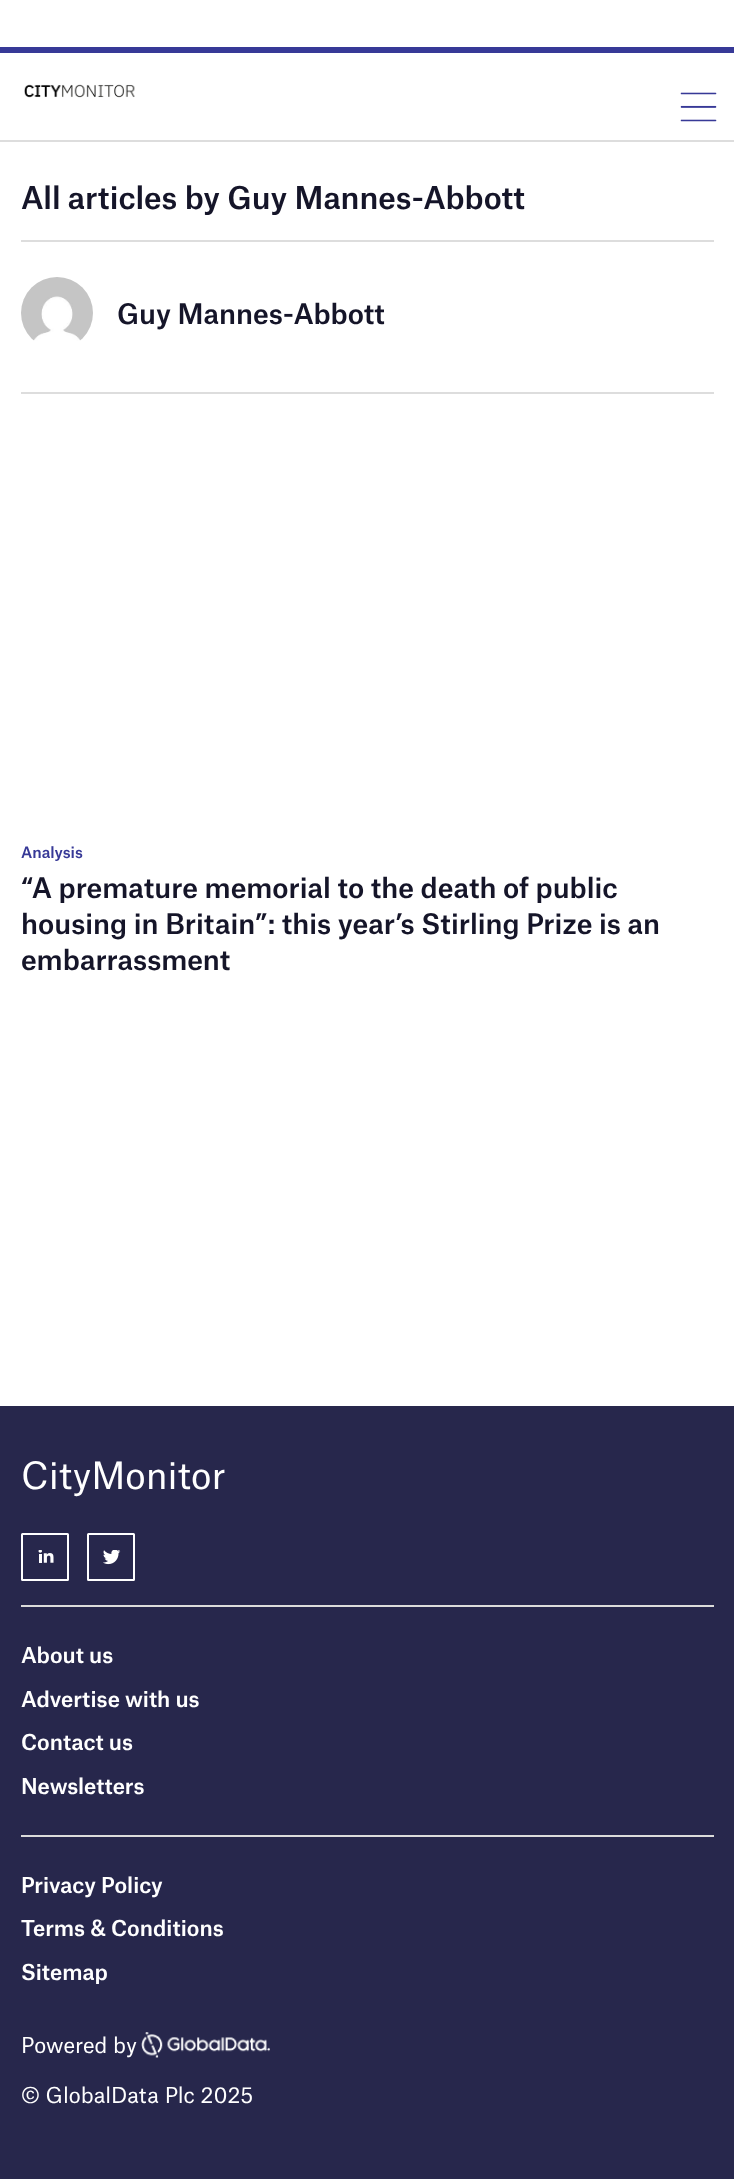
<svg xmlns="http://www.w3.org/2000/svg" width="734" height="2179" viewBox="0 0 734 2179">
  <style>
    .t1 { font: 500 30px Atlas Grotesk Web; fill: #151529; }
    .t2 { font: 500 27px Atlas Grotesk Web; fill: #151529; }
    .t3 { font: 500 15px Atlas Grotesk Web; fill: #373997; }
    .t4 { font: 36px Atlas Grotesk Web; fill: #fff; }
    .t5 { font: 500 21px Atlas Grotesk Web; fill: #fff; }
    .t6 { font: 21px Atlas Grotesk Web; fill: #fff; }
  </style>
  <rect width="100%" height="100%" fill="#fff"/>
  <rect x="0" y="47" width="734" height="6" fill="#373997"/>
  <rect x="0" y="140" width="734" height="2" fill="#ddd"/>
  <image x="24" y="84" width="111" height="14" href="images/1.png"/>
  <image x="680" y="92" width="37" height="30" href="images/2.png"/>
  <rect x="21" y="240" width="693" height="2" fill="#ddd"/>
  <text x="21" y="209" class="t1">All articles by Guy Mannes-Abbott</text>
  <rect x="21" y="392" width="693" height="2" fill="#ddd"/>
  <image x="21" y="277" width="72" height="64" href="images/3.png"/>
  <text x="117" y="324" class="t2">Guy Mannes-Abbott</text>
  <text x="21" y="858" class="t3">Analysis</text>
  <text x="21" y="898" class="t2">“A premature memorial to the death of public</text>
  <text x="21" y="934" class="t2">housing in Britain”: this year’s Stirling Prize is an</text>
  <text x="21" y="970" class="t2">embarrassment</text>
  <rect x="0" y="1406" width="734" height="773" fill="#27274c"/>
  <text x="21" y="1489" class="t4">CityMonitor</text>
  <rect x="22" y="1534" width="46" height="46" rx="0.5" fill="none" stroke="#fff" stroke-width="2"/>
  <image x="38" y="1550" width="16" height="13" href="images/4.png"/>
  <rect x="88" y="1534" width="46" height="46" rx="0.5" fill="none" stroke="#fff" stroke-width="2"/>
  <image x="103" y="1550" width="18" height="15" href="images/5.png"/>
  <rect x="21" y="1605" width="693" height="2" fill="#dbdbdb"/>
  <text x="21" y="1663" class="t5">About us</text>
  <text x="21" y="1707" class="t5">Advertise with us</text>
  <text x="21" y="1750" class="t5">Contact us</text>
  <text x="21" y="1794" class="t5">Newsletters</text>
  <rect x="21" y="1835" width="693" height="2" fill="#dbdbdb"/>
  <text x="21" y="1893" class="t5">Privacy Policy</text>
  <text x="21" y="1936" class="t5">Terms &amp; Conditions</text>
  <text x="21" y="1980" class="t5">Sitemap</text>
  <text x="21" y="2053" class="t6">Powered by</text>
  <image x="141" y="2032" width="129" height="26" href="images/6.png"/>
  <text x="21" y="2103" class="t6">© GlobalData Plc 2025</text>
</svg>
